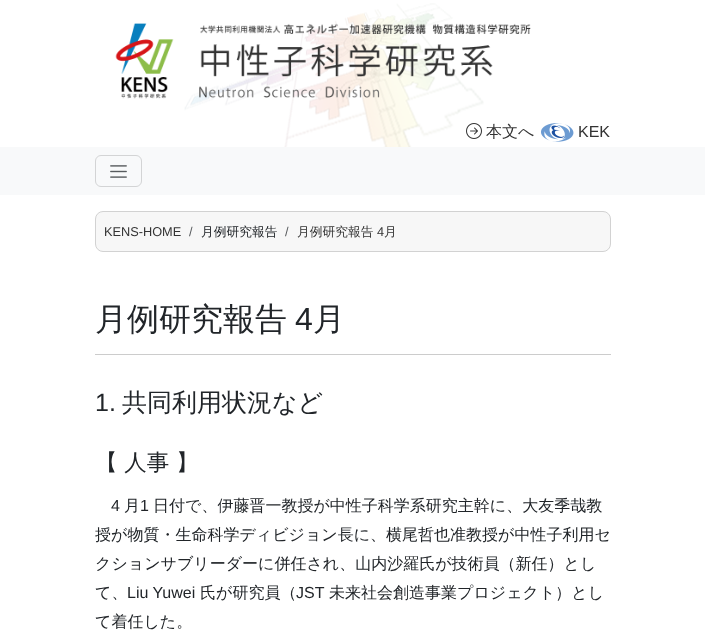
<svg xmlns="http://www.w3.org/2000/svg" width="705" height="635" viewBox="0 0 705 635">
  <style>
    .t1 { font: 500 16px WenQuanYi Zen Hei; fill: #333; }
    .t2 { font: 16px Liberation Sans; fill: #333; }
    .t3 { font: 12.75px Liberation Sans; fill: #333; }
    .t4 { font: 12.75px Liberation Sans; fill: #575a5d; }
    .t5 { font: 500 12.75px WenQuanYi Zen Hei; fill: #212529; }
    .t6 { font: 500 12.75px WenQuanYi Zen Hei; fill: #333; }
    .t7 { font: 500 32px WenQuanYi Zen Hei; fill: #212529; }
    .t8 { font: 32px Liberation Sans; fill: #212529; }
    .t9 { font: 25px Liberation Sans; fill: #212529; }
    .t10 { font: 500 25px WenQuanYi Zen Hei; fill: #212529; }
    .t11 { font: 500 22.5px WenQuanYi Zen Hei; fill: #212529; }
    .t12 { font: 16px Liberation Sans; fill: #212529; }
    .t13 { font: 500 16px WenQuanYi Zen Hei; fill: #212529; }
  </style>
  <rect width="100%" height="100%" fill="#fff"/>
  <image x="184" y="3" width="300" height="144" href="images/1.png"/>
  <image x="115" y="23" width="416" height="76" href="images/2.png"/>
  <image x="466" y="123" width="16" height="16" href="images/3.png"/>
  <text x="486" y="137" class="t1">本文へ</text>
  <image x="541" y="123" width="33" height="19" href="images/4.png"/>
  <text x="578" y="137" class="t2">KEK</text>
  <rect x="0" y="147" width="705" height="48" fill="#f8f9fa"/>
  <rect x="95.5" y="155.5" width="46" height="31" rx="5.5" fill="none" stroke="#d3d4d5"/>
  <image x="110" y="165" width="17" height="13" href="images/5.png"/>
  <rect x="95.5" y="211.5" width="515" height="40" rx="7.5" fill="#f7f7f7" stroke="#d2d2d2"/>
  <text x="104" y="236" class="t3">KENS-HOME</text>
  <text x="189" y="236" class="t4">/</text>
  <text x="201" y="236" class="t5">月例研究報告</text>
  <text x="285" y="236" class="t4">/</text>
  <text x="297" y="236" class="t6">月例研究報告</text>
  <text x="377" y="236" class="t3">4</text>
  <text x="384" y="236" class="t6">月</text>
  <rect x="95" y="354" width="516" height="1" fill="#ccc"/>
  <text x="95" y="330" class="t7">月例研究報告</text>
  <text x="295" y="330" class="t8">4</text>
  <text x="313" y="330" class="t7">月</text>
  <text x="95" y="411" class="t9">1.</text>
  <text x="122" y="411" class="t10">共同利用状況など</text>
  <text x="95" y="470" class="t11">【 人事 】</text>
  <text x="111" y="511" class="t12">4</text>
  <text x="124" y="511" class="t13">月</text>
  <text x="140" y="511" class="t12">1</text>
  <text x="153" y="511" class="t13">日付で、伊藤晋一教授が中性子科学系研究主幹に、大友季哉教</text>
  <text x="95" y="540" class="t13">授が物質・生命科学ディビジョン長に、横尾哲也准教授が中性子利用セ</text>
  <text x="95" y="569" class="t13">クションサブリーダーに併任され、山内沙羅氏が技術員（新任）とし</text>
  <text x="95" y="598" class="t13">て、</text>
  <text x="127" y="598" class="t12">Liu Yuwei</text>
  <text x="200" y="598" class="t13">氏が研究員（</text>
  <text x="296" y="598" class="t12">JST</text>
  <text x="329" y="598" class="t13">未来社会創造事業プロジェクト）とし</text>
  <text x="95" y="627" class="t13">て着任した。</text>
</svg>
